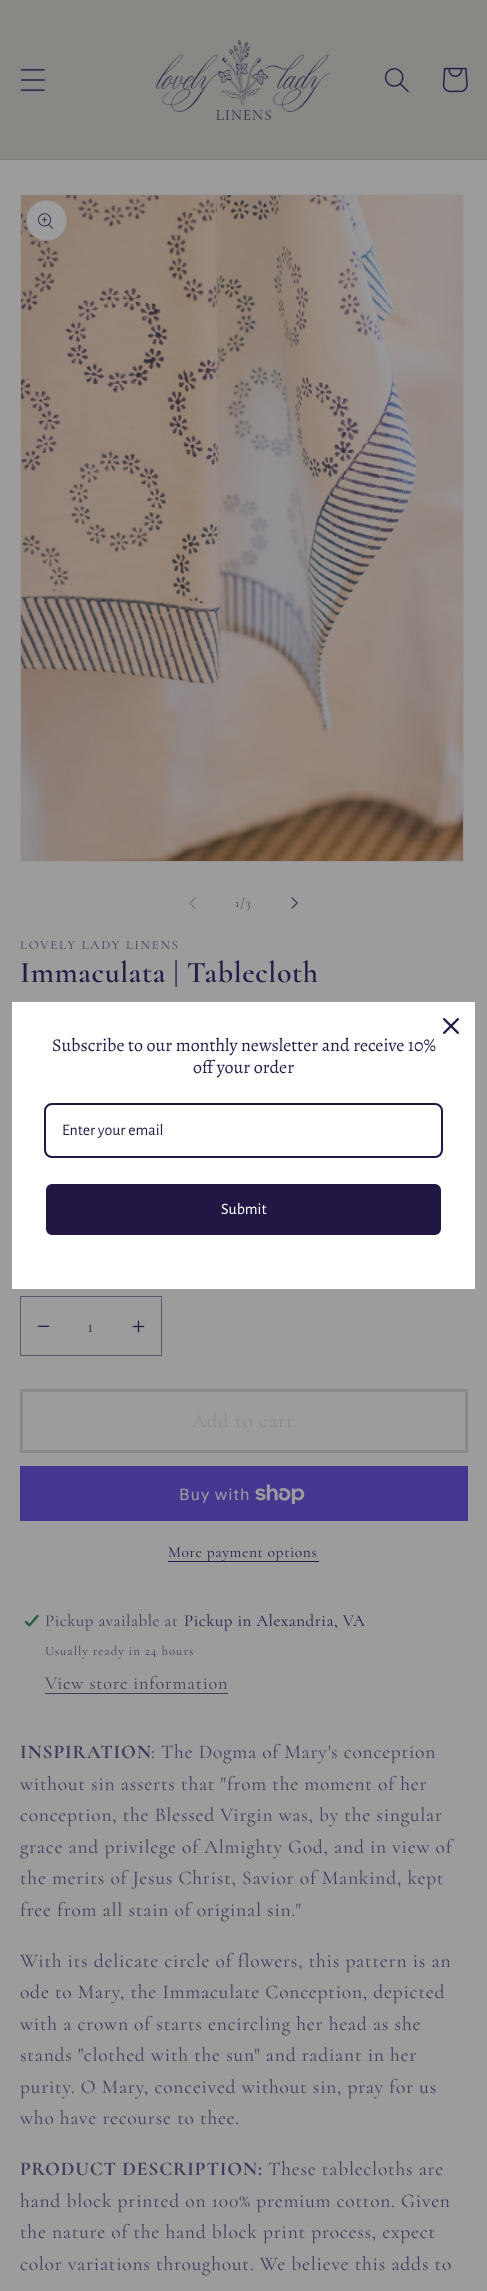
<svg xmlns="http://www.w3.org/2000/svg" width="487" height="2291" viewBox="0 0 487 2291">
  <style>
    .t1 { font: 13px Cormorant; letter-spacing: 0.9px; fill: #413c5b; }
    .t2 { font: 13px Cormorant; letter-spacing: 1.7px; fill: #413c5b; }
    .t3 { font: 600 30px Cormorant; letter-spacing: 0.6px; fill: #231c46; }
    .t4 { font: 18.25px Cormorant; fill: #352f53; }
    .t5 { font: 19.5px Cormorant; letter-spacing: 1.25px; fill: #898a89; }
    .t6 { font: 16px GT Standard; letter-spacing: 0.78px; fill: #9c9c9c; }
    .t7 { font: 15.5px Cormorant; letter-spacing: 0.6px; fill: #231c46; }
    .t8 { font: 16.9px Cormorant; letter-spacing: 0.5px; fill: #413c5b; }
    .t9 { font: 16.9px Cormorant; letter-spacing: 0.5px; fill: #231c46; }
    .t10 { font: 18.25px Cormorant; letter-spacing: 0.78px; fill: #413c5b; }
    .t11 { font: bold 19.5px Cormorant; letter-spacing: 0.78px; fill: #413c5b; }
    .t12 { font: 19.5px Cormorant; letter-spacing: 0.78px; fill: #413c5b; }
    .t13 { font: 18px Alegreya; fill: #231c46; }
    .t14 { font: 16px Alegreya Sans; fill: #231c46; }
    .t15 { font: 16px Alegreya Sans; fill: #fff; }
  </style>
  <rect width="100%" height="100%" fill="#9c9c9c"/>
  <rect x="0" y="0" width="487" height="159" fill="#868984"/>
  <rect x="0" y="159" width="487" height="1" fill="#7e807f"/>
  <image x="20" y="69" width="25" height="22" href="images/1.png"/>
  <image x="155" y="40" width="177" height="81" href="images/2.png"/>
  <image x="384" y="68" width="25" height="25" href="images/3.png"/>
  <image x="442" y="67" width="26" height="26" href="images/4.png"/>
  <rect x="20.5" y="194.5" width="443" height="667" fill="none" stroke="#969597"/>
  <image x="21" y="195" width="442" height="666" href="images/5.png"/>
  <circle cx="46.5" cy="220.5" r="20.5" fill="#9c9c9c"/>
  <circle cx="46.5" cy="220.5" r="20" fill="none" stroke="#231c461a"/>
  <image x="38" y="213" width="16" height="16" href="images/6.png"/>
  <image x="189" y="897" width="7" height="12" href="images/7.png"/>
  <text x="235" y="907" class="t1">1/3</text>
  <image x="291" y="897" width="7" height="12" href="images/8.png"/>
  <text x="20" y="949" class="t2">LOVELY LADY LINENS</text>
  <text x="20" y="982" class="t3">Immaculata | Tablecloth</text>
  <image x="37" y="1325" width="13" height="2" href="images/9.png"/>
  <image x="132" y="1320" width="13" height="13" href="images/10.png"/>
  <rect x="20.5" y="1296.5" width="141" height="59" fill="none" stroke="#59566c"/>
  <text x="87" y="1332" class="t4">1</text>
  <rect x="21.5" y="1390.5" width="445" height="61" fill="none" stroke="#898a89" stroke-width="3"/>
  <text x="192" y="1427" class="t5">Add to cart</text>
  <rect x="20" y="1466" width="448" height="55" fill="#463692"/>
  <text x="179" y="1500" class="t6">Buy with</text>
  <image x="255" y="1484" width="50" height="20" href="images/11.png"/>
  <rect x="168" y="1561" width="151" height="1" fill="#231c46"/>
  <text x="168" y="1557" class="t7">More payment options</text>
  <image x="24" y="1614" width="16" height="14" href="images/12.png"/>
  <text x="45" y="1626" class="t8">Pickup available at</text>
  <text x="184" y="1626" class="t9">Pickup in Alexandria, VA</text>
  <text x="45" y="1655" class="t1">Usually ready in 24 hours</text>
  <text x="45" y="1689" class="t10">View store information</text>
  <rect x="45" y="1693" width="183" height="1" fill="#413c5b"/>
  <text x="20" y="1758" class="t11">INSPIRATION</text>
  <text x="151" y="1758" class="t12">: The Dogma of Mary's conception</text>
  <text x="20" y="1790" class="t12">without sin asserts that "from the moment of her</text>
  <text x="20" y="1821" class="t12">conception, the Blessed Virgin was, by the singular</text>
  <text x="20" y="1853" class="t12">grace and privilege of Almighty God, and in view of</text>
  <text x="20" y="1884" class="t12">the merits of Jesus Christ, Savior of Mankind, kept</text>
  <text x="20" y="1916" class="t12">free from all stain of original sin."</text>
  <text x="20" y="1967" class="t12">With its delicate circle of flowers, this pattern is an</text>
  <text x="20" y="1998" class="t12">ode to Mary, the Immaculate Conception, depicted</text>
  <text x="20" y="2030" class="t12">with a crown of starts encircling her head as she</text>
  <text x="20" y="2061" class="t12">stands "clothed with the sun" and radiant in her</text>
  <text x="20" y="2093" class="t12">purity. O Mary, conceived without sin, pray for us</text>
  <text x="20" y="2124" class="t12">who have recourse to thee.</text>
  <text x="20" y="2175" class="t11">PRODUCT DESCRIPTION:</text>
  <text x="268" y="2175" class="t12">These tablecloths are</text>
  <text x="20" y="2207" class="t12">hand block printed on 100% premium cotton. Given</text>
  <text x="20" y="2238" class="t12">the nature of the hand block print process, expect</text>
  <text x="20" y="2270" class="t12">color variations throughout. We believe this adds to</text>
  <rect x="12" y="1002" width="463" height="287" fill="#fff"/>
  <image x="443" y="1018" width="16" height="16" href="images/13.png"/>
  <text x="52" y="1051" class="t13">Subscribe to our monthly newsletter and receive 10%</text>
  <text x="193" y="1073" class="t13">off your order</text>
  <rect x="45" y="1104" width="397" height="53" rx="7" fill="none" stroke="#221744" stroke-width="2"/>
  <text x="62" y="1135" class="t14">Enter your email</text>
  <rect x="45" y="1183" width="397" height="53" rx="7" fill="#221744" stroke="#fff" stroke-width="2"/>
  <text x="221" y="1214" class="t15">Submit</text>
</svg>
